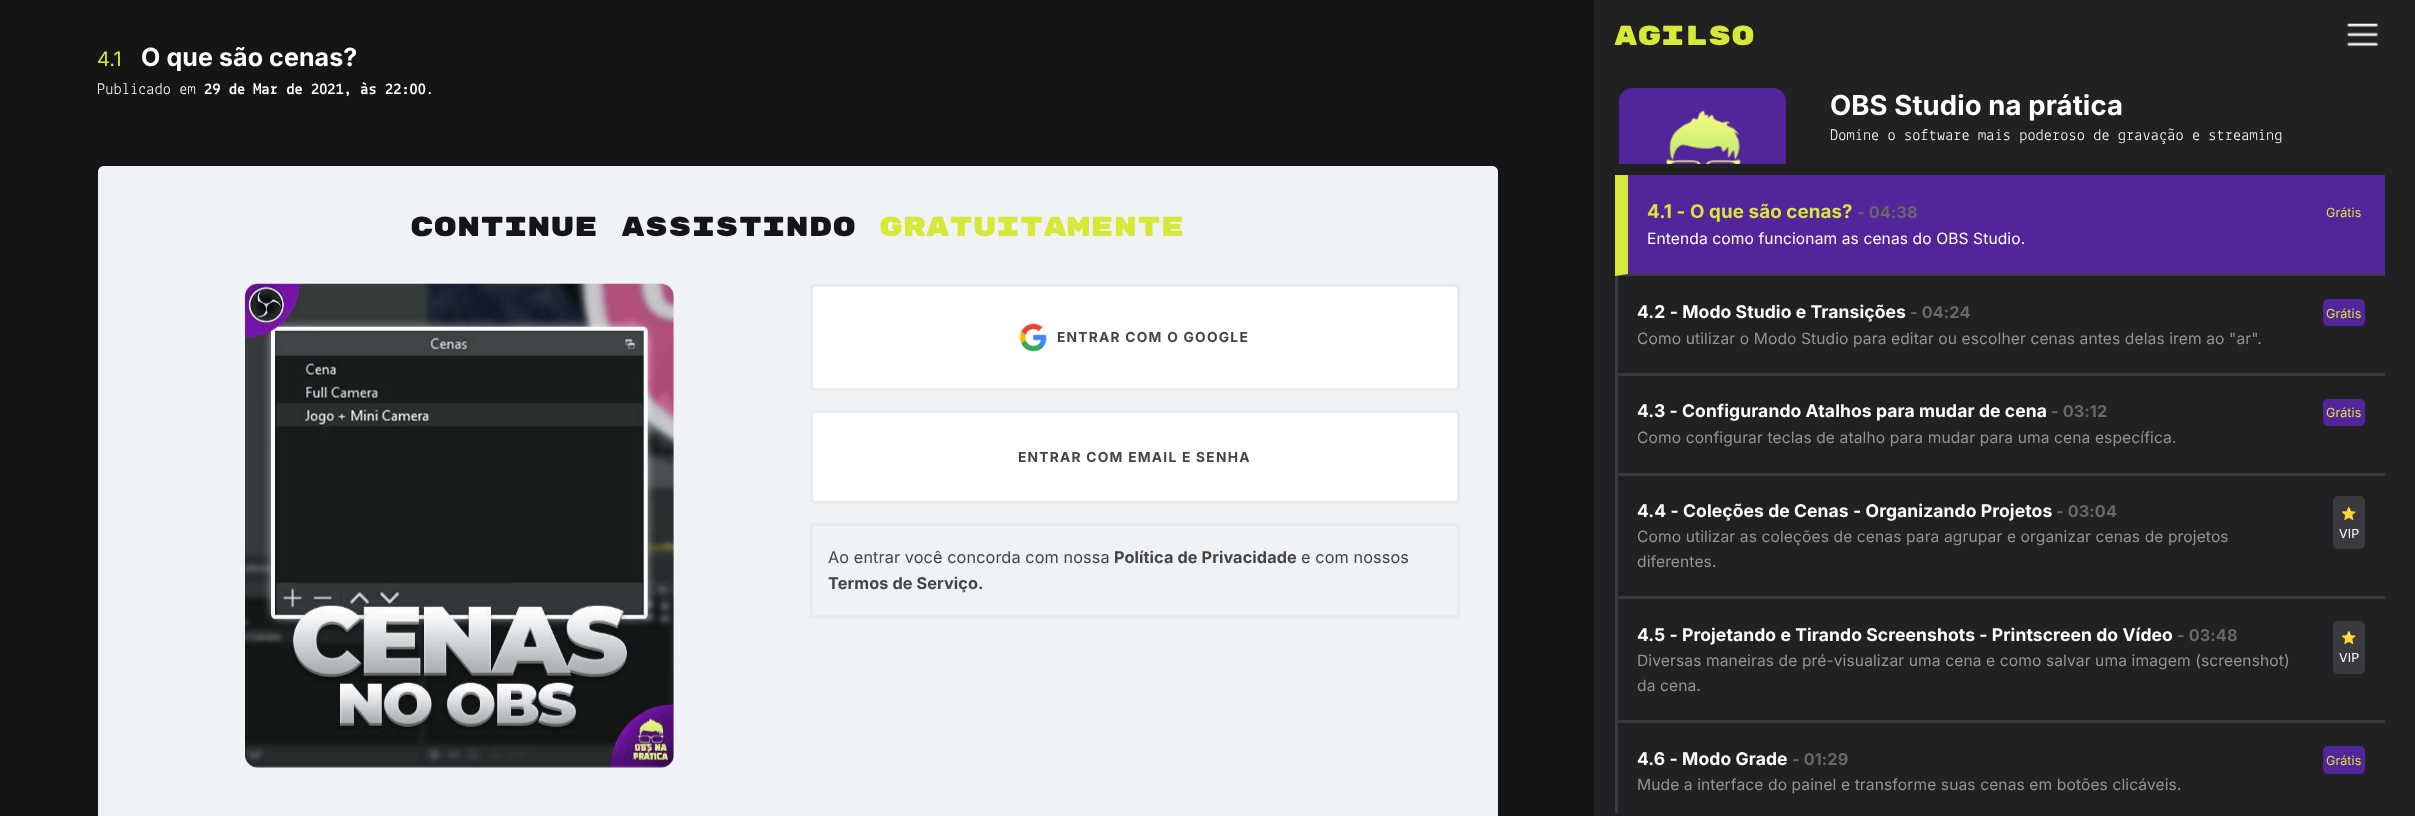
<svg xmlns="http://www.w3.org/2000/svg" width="2415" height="816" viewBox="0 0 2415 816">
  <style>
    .t1 { font: 20px Inter; letter-spacing: 0.1px; fill: #d7e839; }
    .t2 { font: bold 25px Inter; letter-spacing: 0.1px; fill: #fff; }
    .t3 { font: 16.25px Lekton; letter-spacing: 0.1px; fill: #fff; }
    .t4 { font: bold 16.25px Lekton; letter-spacing: 0.1px; fill: #fff; }
    .t5 { font: 27.5px Rubik Mono One; letter-spacing: 0.1px; fill: #151517; }
    .t6 { font: 27.5px Rubik Mono One; letter-spacing: 0.1px; fill: #d7e839; }
    .t7 { font: bold 13.75px Inter; letter-spacing: 1.25px; fill: #444; }
    .t8 { font: 16.25px Inter; letter-spacing: 0.1px; fill: #444; }
    .t9 { font: bold 16.25px Inter; letter-spacing: 0.1px; fill: #444; }
    .t10 { font: bold 27.5px Inter; letter-spacing: 0.1px; fill: #fff; }
    .t11 { font: bold 18.75px Inter; letter-spacing: 0.1px; fill: #d7e839; }
    .t12 { font: bold 16.25px Inter; letter-spacing: 0.1px; fill: #676869; }
    .t13 { font: 15.6px Inter; letter-spacing: 0.1px; fill: #fff; }
    .t14 { font: 12.5px Inter; letter-spacing: 0.1px; fill: #d7e839; }
    .t15 { font: bold 17.5px Inter; letter-spacing: 0.1px; fill: #fff; }
    .t16 { font: 15.6px Inter; letter-spacing: 0.1px; fill: #949494; }
    .t17 { font: 12.5px Noto Color Emoji; letter-spacing: 0.1px; fill: #fff; }
    .t18 { font: 12.5px Inter; letter-spacing: 0.1px; fill: #fff; }
  </style>
  <rect width="100%" height="100%" fill="#151517"/>
  <text x="97" y="66" class="t1">4.1</text>
  <text x="141" y="66" class="t2">O que são cenas?</text>
  <text x="97" y="94" class="t3">Publicado em</text>
  <text x="204" y="94" class="t4">29 de Mar de 2021, às 22:00</text>
  <text x="426" y="94" class="t3">.</text>
  <path d="M104 166H1492C1495.5 166 1498 168.5 1498 172V816H98V172C98 168.5 100.5 166 104 166Z" fill="#f0f3f6"/>
  <text x="410" y="236" class="t5">Continue assistindo</text>
  <text x="879" y="236" class="t6">gratuitamente</text>
  <image x="245" y="283" width="429" height="485" href="images/1.png"/>
  <rect x="811.5" y="285.5" width="647" height="104" rx="3.5" fill="#fff" stroke="#e9ecef" stroke-width="3"/>
  <image x="1019" y="323" width="28" height="29" href="images/2.png"/>
  <text x="1057" y="342" class="t7">ENTRAR COM O GOOGLE</text>
  <rect x="811.5" y="411.5" width="647" height="91" rx="3.5" fill="#fff" stroke="#e9ecef" stroke-width="3"/>
  <text x="1018" y="462" class="t7">ENTRAR COM EMAIL E SENHA</text>
  <rect x="811.5" y="524.5" width="647" height="92" fill="none" stroke="#e9ecef" stroke-width="3"/>
  <text x="828" y="563" class="t8">Ao entrar você concorda com nossa</text>
  <text x="1114" y="563" class="t9">Política de Privacidade</text>
  <text x="1301" y="563" class="t8">e com nossos</text>
  <text x="828" y="589" class="t9">Termos de Serviço.</text>
  <rect x="1594" y="0" width="821" height="816" fill="#212124"/>
  <text x="1614" y="45" class="t6">Agilso</text>
  <image x="2347" y="23" width="31" height="24" href="images/3.png"/>
  <path d="M1632 88H1773C1780 88 1786 94 1786 101V164H1619V101C1619 94 1625 88 1632 88Z" fill="#52259a"/>
  <image x="1665" y="110" width="76" height="54" href="images/4.png"/>
  <text x="1830" y="115" class="t10">OBS Studio na prática</text>
  <text x="1830" y="140" class="t3">Domine o software mais poderoso de gravação e streaming</text>
  <rect x="1615" y="175" width="770" height="101" fill="#52259a"/>
  <path d="M2385 276H1615L1628 274H2385Z" fill="#3a3a3f"/>
  <path d="M1615 276V175H1628V274Z" fill="#d7e839"/>
  <text x="1647" y="218" class="t11">4.1 - O que são cenas?</text>
  <text x="1857" y="218" class="t12">- 04:38</text>
  <text x="1647" y="244" class="t13">Entenda como funcionam as cenas do OBS Studio.</text>
  <text x="2326" y="217" class="t14">Grátis</text>
  <rect x="1615" y="373" width="770" height="3" fill="#3a3a3f"/>
  <rect x="1615" y="276" width="3" height="99" fill="#3a3a3f"/>
  <text x="1637" y="318" class="t15">4.2 - Modo Studio e Transições</text>
  <text x="1910" y="318" class="t12">- 04:24</text>
  <text x="1637" y="344" class="t16">Como utilizar o Modo Studio para editar ou escolher cenas antes delas irem ao "ar".</text>
  <rect x="2323" y="299" width="42" height="27" rx="5" fill="#52259a"/>
  <text x="2326" y="318" class="t14">Grátis</text>
  <rect x="1615" y="473" width="770" height="3" fill="#3a3a3f"/>
  <rect x="1615" y="375" width="3" height="100" fill="#3a3a3f"/>
  <text x="1637" y="417" class="t15">4.3 - Configurando Atalhos para mudar de cena</text>
  <text x="2051" y="417" class="t12">- 03:12</text>
  <text x="1637" y="443" class="t16">Como configurar teclas de atalho para mudar para uma cena específica.</text>
  <rect x="2323" y="399" width="42" height="27" rx="5" fill="#52259a"/>
  <text x="2326" y="417" class="t14">Grátis</text>
  <rect x="1615" y="596" width="770" height="3" fill="#3a3a3f"/>
  <rect x="1615" y="475" width="3" height="124" fill="#3a3a3f"/>
  <text x="1637" y="517" class="t15">4.4 - Coleções de Cenas - Organizando Projetos</text>
  <text x="2056" y="517" class="t12">- 03:04</text>
  <text x="1637" y="542" class="t16">Como utilizar as coleções de cenas para agrupar e organizar cenas de projetos</text>
  <text x="1637" y="567" class="t16">diferentes.</text>
  <rect x="2333" y="496" width="32" height="53" rx="5" fill="#3a3a3f"/>
  <text x="2341" y="518" class="t17">⭐</text>
  <text x="2339" y="538" class="t18">VIP</text>
  <rect x="1615" y="720" width="770" height="3" fill="#3a3a3f"/>
  <rect x="1615" y="599" width="3" height="214" fill="#3a3a3f"/>
  <text x="1637" y="641" class="t15">4.5 - Projetando e Tirando Screenshots - Printscreen do Vídeo</text>
  <text x="2177" y="641" class="t12">- 03:48</text>
  <text x="1637" y="666" class="t16">Diversas maneiras de pré-visualizar uma cena e como salvar uma imagem (screenshot)</text>
  <text x="1637" y="691" class="t16">da cena.</text>
  <rect x="2333" y="621" width="32" height="53" rx="5" fill="#3a3a3f"/>
  <text x="2341" y="642" class="t17">⭐</text>
  <text x="2339" y="662" class="t18">VIP</text>
  <text x="1637" y="765" class="t15">4.6 - Modo Grade</text>
  <text x="1792" y="765" class="t12">- 01:29</text>
  <text x="1637" y="790" class="t16">Mude a interface do painel e transforme suas cenas em botões clicáveis.</text>
  <rect x="2323" y="746" width="42" height="28" rx="5" fill="#52259a"/>
  <text x="2326" y="765" class="t14">Grátis</text>
</svg>
